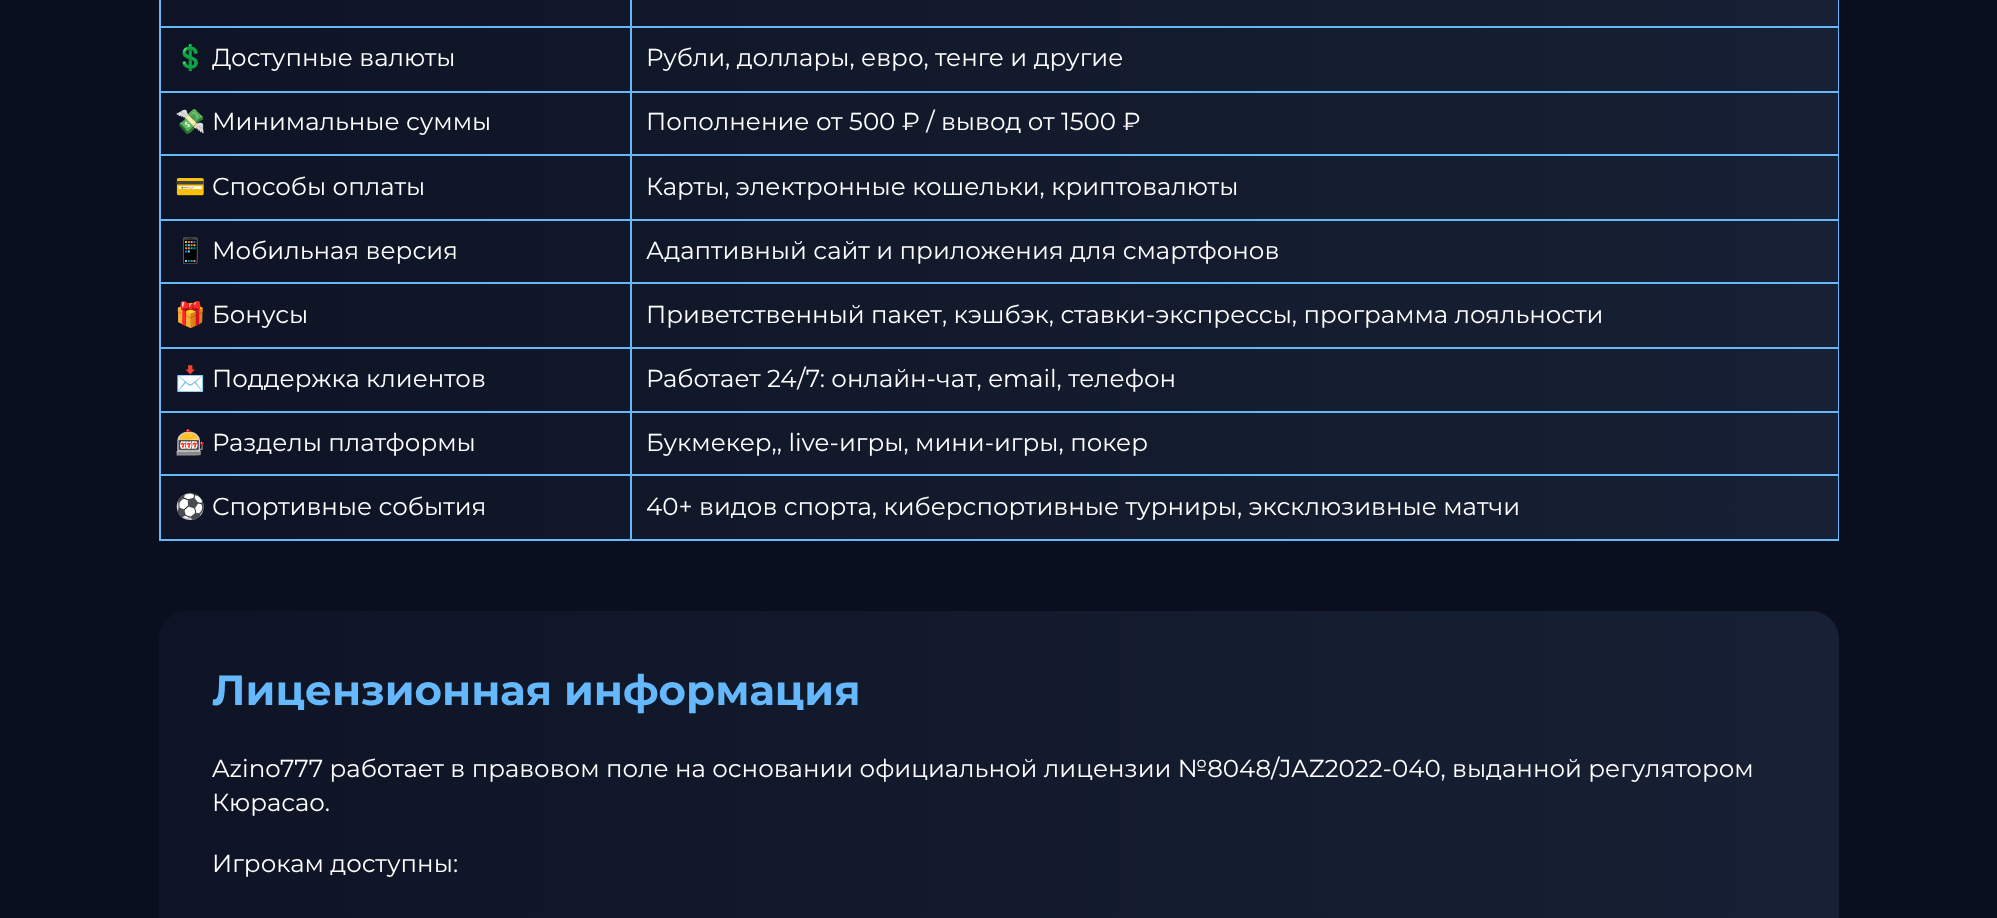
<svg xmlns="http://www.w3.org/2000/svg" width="1997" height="918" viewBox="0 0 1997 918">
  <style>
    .t1 { font: 24.5px Noto Color Emoji; fill: #fff; }
    .t2 { font: 24.5px Montserrat; fill: #fff; }
    .t3 { font: bold 42px Montserrat; fill: #64b8fb; }
  </style>
  <defs>
    <linearGradient id="g1" gradientUnits="userSpaceOnUse" x1="159" y1="53" x2="1839" y2="53"><stop offset="0" stop-color="#0e1425"/><stop offset="0.25" stop-color="#101729"/><stop offset="0.5" stop-color="#121a2c"/><stop offset="0.75" stop-color="#151d30"/><stop offset="1" stop-color="#172034"/></linearGradient>
    <linearGradient id="g2" gradientUnits="userSpaceOnUse" x1="159" y1="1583" x2="1839" y2="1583"><stop offset="0" stop-color="#0e1425"/><stop offset="0.25" stop-color="#101729"/><stop offset="0.5" stop-color="#121a2c"/><stop offset="0.75" stop-color="#151d30"/><stop offset="1" stop-color="#172034"/></linearGradient>
  </defs>
  <rect width="100%" height="100%" fill="#090f1e"/>
  <rect x="161" y="0" width="1677" height="539" fill="url(#g1)"/>
  <rect x="630" y="26" width="1209" height="2" fill="#64b8fb"/>
  <rect x="630" y="91" width="1209" height="2" fill="#64b8fb"/>
  <rect x="630" y="154" width="1209" height="2" fill="#64b8fb"/>
  <rect x="630" y="219" width="1209" height="2" fill="#64b8fb"/>
  <rect x="630" y="282" width="1209" height="2" fill="#64b8fb"/>
  <rect x="630" y="347" width="1209" height="2" fill="#64b8fb"/>
  <rect x="630" y="411" width="1209" height="2" fill="#64b8fb"/>
  <rect x="630" y="474" width="1209" height="2" fill="#64b8fb"/>
  <rect x="1838" y="474" width="1" height="67" fill="#64b8fb"/>
  <rect x="630" y="539" width="1209" height="2" fill="#64b8fb"/>
  <rect x="630" y="474" width="2" height="67" fill="#64b8fb"/>
  <rect x="159" y="474" width="473" height="2" fill="#64b8fb"/>
  <rect x="630" y="411" width="2" height="65" fill="#64b8fb"/>
  <rect x="159" y="411" width="473" height="2" fill="#64b8fb"/>
  <rect x="630" y="347" width="2" height="66" fill="#64b8fb"/>
  <rect x="159" y="347" width="473" height="2" fill="#64b8fb"/>
  <rect x="630" y="282" width="2" height="66" fill="#64b8fb"/>
  <rect x="159" y="282" width="473" height="2" fill="#64b8fb"/>
  <rect x="630" y="219" width="2" height="65" fill="#64b8fb"/>
  <rect x="159" y="219" width="473" height="2" fill="#64b8fb"/>
  <rect x="630" y="154" width="2" height="67" fill="#64b8fb"/>
  <rect x="159" y="154" width="473" height="2" fill="#64b8fb"/>
  <rect x="630" y="91" width="2" height="65" fill="#64b8fb"/>
  <rect x="159" y="91" width="473" height="2" fill="#64b8fb"/>
  <rect x="630" y="26" width="2" height="67" fill="#64b8fb"/>
  <rect x="159" y="26" width="473" height="2" fill="#64b8fb"/>
  <rect x="630" y="0" width="2" height="28" fill="#64b8fb"/>
  <rect x="159" y="539" width="473" height="2" fill="#64b8fb"/>
  <rect x="159" y="474" width="2" height="67" fill="#64b8fb"/>
  <rect x="159" y="411" width="2" height="65" fill="#64b8fb"/>
  <rect x="159" y="347" width="2" height="66" fill="#64b8fb"/>
  <rect x="159" y="282" width="2" height="66" fill="#64b8fb"/>
  <rect x="159" y="219" width="2" height="65" fill="#64b8fb"/>
  <rect x="159" y="154" width="2" height="67" fill="#64b8fb"/>
  <rect x="159" y="91" width="2" height="65" fill="#64b8fb"/>
  <rect x="159" y="0" width="2" height="93" fill="#64b8fb"/>
  <text x="175" y="66" class="t1">💲</text>
  <text x="212" y="66" class="t2">Доступные валюты</text>
  <rect x="1838" y="411" width="1" height="65" fill="#64b8fb"/>
  <rect x="1838" y="347" width="1" height="66" fill="#64b8fb"/>
  <rect x="1838" y="282" width="1" height="66" fill="#64b8fb"/>
  <rect x="1838" y="219" width="1" height="65" fill="#64b8fb"/>
  <rect x="1838" y="154" width="1" height="67" fill="#64b8fb"/>
  <rect x="1838" y="91" width="1" height="65" fill="#64b8fb"/>
  <rect x="1838" y="0" width="1" height="93" fill="#64b8fb"/>
  <text x="646" y="66" class="t2">Рубли, доллары, евро, тенге и другие</text>
  <text x="175" y="130" class="t1">💸</text>
  <text x="212" y="130" class="t2">Минимальные суммы</text>
  <text x="646" y="130" class="t2">Пополнение от 500 ₽ / вывод от 1500 ₽</text>
  <text x="175" y="195" class="t1">💳</text>
  <text x="212" y="195" class="t2">Способы оплаты</text>
  <text x="646" y="195" class="t2">Карты, электронные кошельки, криптовалюты</text>
  <text x="175" y="259" class="t1">📱️</text>
  <text x="212" y="259" class="t2">Мобильная версия</text>
  <text x="646" y="259" class="t2">Адаптивный сайт и приложения для смартфонов</text>
  <text x="175" y="323" class="t1">🎁</text>
  <text x="212" y="323" class="t2">Бонусы</text>
  <text x="646" y="323" class="t2">Приветственный пакет, кэшбэк, ставки-экспрессы, программа лояльности</text>
  <text x="175" y="387" class="t1">📩</text>
  <text x="212" y="387" class="t2">Поддержка клиентов</text>
  <text x="646" y="387" class="t2">Работает 24/7: онлайн-чат, email, телефон</text>
  <text x="175" y="451" class="t1">🎰</text>
  <text x="212" y="451" class="t2">Разделы платформы</text>
  <text x="646" y="451" class="t2">Букмекер,, live-игры, мини-игры, покер</text>
  <text x="175" y="515" class="t1">⚽</text>
  <text x="212" y="515" class="t2">Спортивные события</text>
  <text x="646" y="515" class="t2">40+ видов спорта, киберспортивные турниры, эксклюзивные матчи</text>
  <rect x="159" y="611" width="1680" height="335" rx="28" fill="url(#g2)"/>
  <text x="212" y="705" class="t3">Лицензионная информация</text>
  <text x="212" y="777" class="t2">Azino777 работает в правовом поле на основании официальной лицензии №8048/JAZ2022-040, выданной регулятором</text>
  <text x="212" y="811" class="t2">Кюрасао.</text>
  <text x="212" y="872" class="t2">Игрокам доступны:</text>
</svg>
